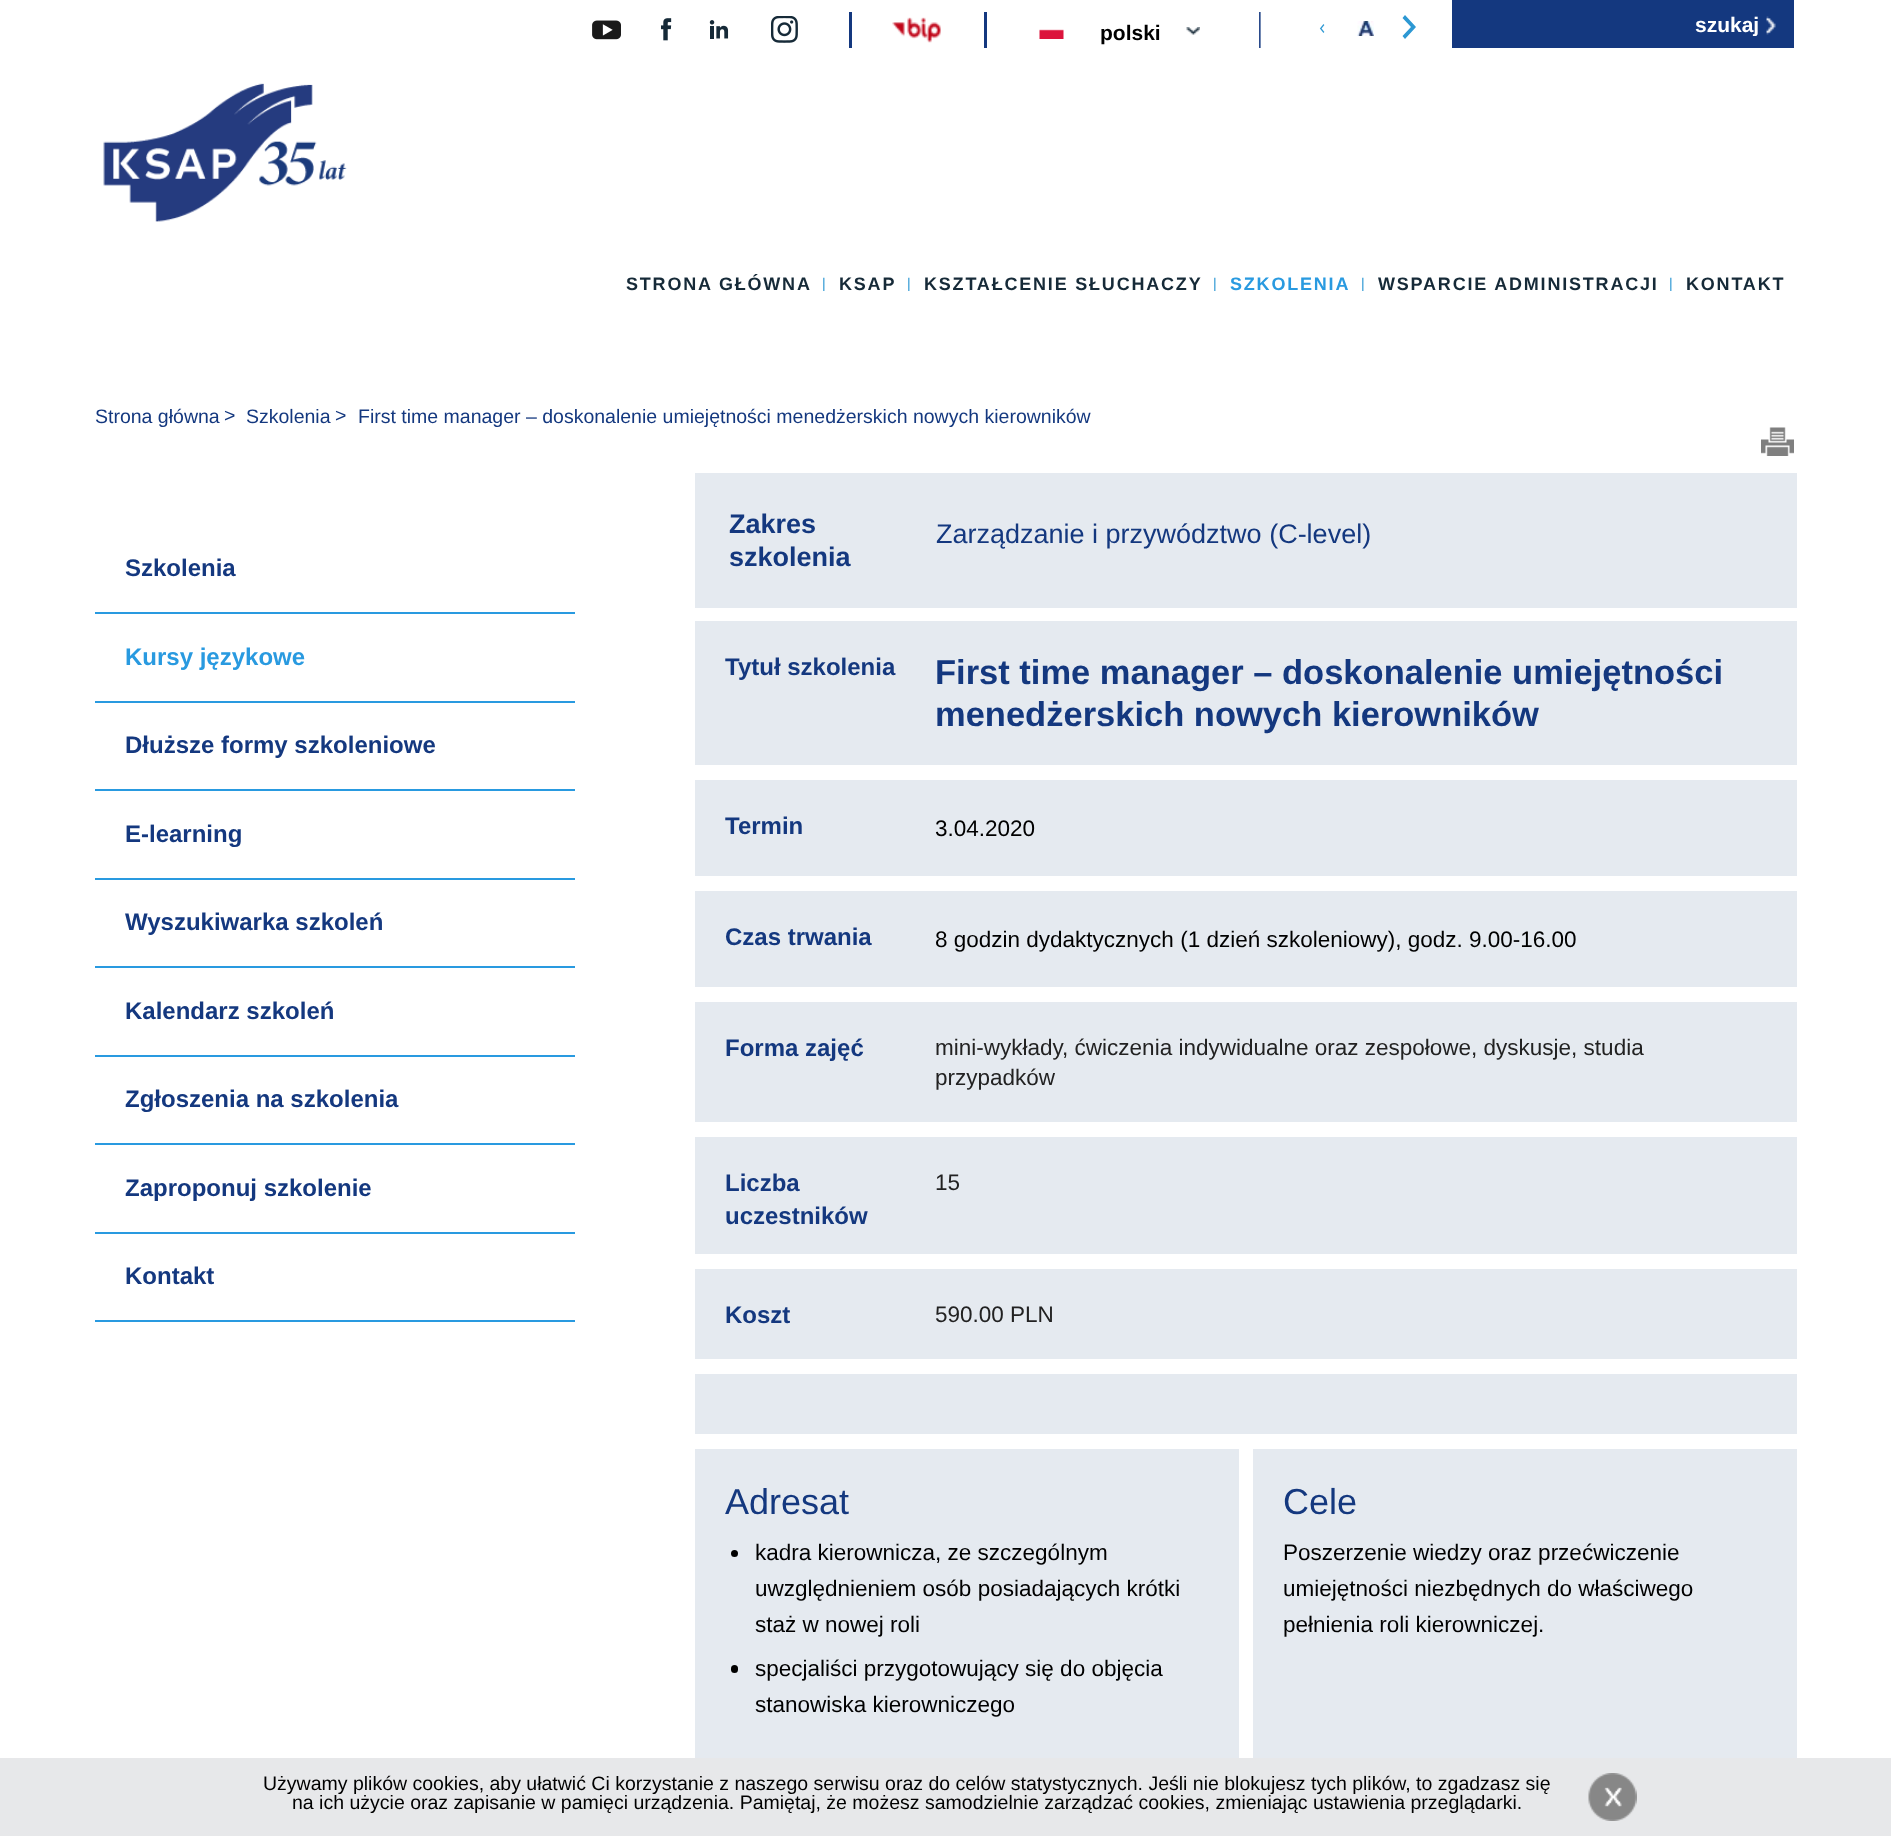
<svg xmlns="http://www.w3.org/2000/svg" width="1891" height="1836" viewBox="0 0 1891 1836">
  <style>
    .t1 { font: bold 21px Liberation Sans; fill: #000; }
    .t2 { font: bold 21px Liberation Sans; fill: #fff; }
    .t3 { font: bold 18px Liberation Sans; letter-spacing: 1.8px; fill: #162a38; }
    .t4 { font: 14px Liberation Sans; fill: #2d98d3; }
    .t5 { font: bold 18px Liberation Sans; letter-spacing: 1.8px; fill: #299ae0; }
    .t6 { font: 19.5px Liberation Sans; fill: #14387f; }
    .t7 { font: bold 24px Liberation Sans; fill: #14387f; }
    .t8 { font: bold 24px Liberation Sans; fill: #299ae0; }
    .t9 { font: bold 27px Liberation Sans; fill: #14387f; }
    .t10 { font: 27px Liberation Sans; fill: #14387f; }
    .t11 { font: bold 34.5px Liberation Sans; fill: #14387f; }
    .t12 { font: 22.5px Liberation Sans; fill: #000; }
    .t13 { font: 22.5px Liberation Sans; fill: #222; }
    .t14 { font: 36px Liberation Sans; fill: #14387f; }
    .t15 { font: 19.5px Liberation Sans; fill: #000; }
  </style>
  <defs>
    <clipPath id="clip1"><rect x="1452" y="12" width="308" height="24"/></clipPath>
  </defs>
  <rect width="100%" height="100%" fill="#fff"/>
  <image x="592" y="20" width="29" height="20" href="images/1.png"/>
  <image x="661" y="18" width="11" height="23" href="images/2.png"/>
  <image x="709" y="20" width="20" height="19" href="images/3.png"/>
  <image x="771" y="16" width="27" height="27" href="images/4.png"/>
  <rect x="849" y="12" width="3" height="36" fill="#14387f"/>
  <image x="892" y="17" width="49" height="26" href="images/5.png"/>
  <rect x="984" y="12" width="3" height="36" fill="#14387f"/>
  <image x="1039" y="29" width="25" height="10" href="images/6.png"/>
  <image x="1186" y="27" width="14" height="8" href="images/7.png"/>
  <text x="1100" y="40" class="t1">polski</text>
  <image x="1259" y="12" width="2" height="36" href="images/8.png"/>
  <image x="1319" y="24" width="6" height="9" href="images/9.png"/>
  <image x="1357" y="21" width="17" height="15" href="images/10.png"/>
  <path d="M1405 39L1402.5 36L1411 27L1402.5 18L1405 15L1416 27Z" fill="#2d98d3"/>
  <rect x="1452" y="0" width="342" height="48" fill="#14387f"/>
  <g clip-path="url(#clip1)">
    <text x="1695" y="32" class="t2">szukaj</text>
  </g>
  <image x="1766" y="16" width="10" height="19" href="images/11.png"/>
  <image x="103" y="83" width="244" height="139" href="images/12.png"/>
  <text x="626" y="290" class="t3">STRONA GŁÓWNA</text>
  <text x="822" y="288" class="t4">|</text>
  <text x="839" y="290" class="t3">KSAP</text>
  <text x="907" y="288" class="t4">|</text>
  <text x="924" y="290" class="t3">KSZTAŁCENIE SŁUCHACZY</text>
  <text x="1213" y="288" class="t4">|</text>
  <text x="1230" y="290" class="t5">SZKOLENIA</text>
  <text x="1361" y="288" class="t4">|</text>
  <text x="1378" y="290" class="t3">WSPARCIE ADMINISTRACJI</text>
  <text x="1669" y="288" class="t4">|</text>
  <text x="1686" y="290" class="t3">KONTAKT</text>
  <text x="95" y="423" class="t6">Strona główna</text>
  <text x="224" y="422" class="t6">&gt;</text>
  <text x="246" y="423" class="t6">Szkolenia</text>
  <text x="335" y="422" class="t6">&gt;</text>
  <text x="358" y="423" class="t6">First time manager – doskonalenie umiejętności menedżerskich nowych kierowników</text>
  <rect x="95" y="612" width="480" height="2" fill="#299ae0"/>
  <text x="125" y="576" class="t7">Szkolenia</text>
  <rect x="95" y="701" width="480" height="2" fill="#299ae0"/>
  <text x="125" y="665" class="t8">Kursy językowe</text>
  <rect x="95" y="789" width="480" height="2" fill="#299ae0"/>
  <text x="125" y="753" class="t7">Dłuższe formy szkoleniowe</text>
  <rect x="95" y="878" width="480" height="2" fill="#299ae0"/>
  <text x="125" y="842" class="t7">E-learning</text>
  <rect x="95" y="966" width="480" height="2" fill="#299ae0"/>
  <text x="125" y="930" class="t7">Wyszukiwarka szkoleń</text>
  <rect x="95" y="1055" width="480" height="2" fill="#299ae0"/>
  <text x="125" y="1019" class="t7">Kalendarz szkoleń</text>
  <rect x="95" y="1143" width="480" height="2" fill="#299ae0"/>
  <text x="125" y="1107" class="t7">Zgłoszenia na szkolenia</text>
  <rect x="95" y="1232" width="480" height="2" fill="#299ae0"/>
  <text x="125" y="1196" class="t7">Zaproponuj szkolenie</text>
  <rect x="95" y="1320" width="480" height="2" fill="#299ae0"/>
  <text x="125" y="1284" class="t7">Kontakt</text>
  <image x="1761" y="427" width="33" height="29" href="images/13.png"/>
  <rect x="695" y="473" width="1102" height="135" fill="#e5eaf0"/>
  <text x="729" y="533" class="t9">Zakres</text>
  <text x="729" y="566" class="t9">szkolenia</text>
  <text x="936" y="543" class="t10">Zarządzanie i przywództwo (C-level)</text>
  <rect x="695" y="621" width="1102" height="144" fill="#e5eaf0"/>
  <text x="725" y="675" class="t7">Tytuł szkolenia</text>
  <text x="935" y="684" class="t11">First time manager – doskonalenie umiejętności</text>
  <text x="935" y="726" class="t11">menedżerskich nowych kierowników</text>
  <rect x="695" y="780" width="1102" height="96" fill="#e5eaf0"/>
  <text x="725" y="834" class="t7">Termin</text>
  <text x="935" y="836" class="t12">3.04.2020</text>
  <rect x="695" y="891" width="1102" height="96" fill="#e5eaf0"/>
  <text x="725" y="945" class="t7">Czas trwania</text>
  <text x="935" y="947" class="t12">8 godzin dydaktycznych (1 dzień szkoleniowy), godz. 9.00-16.00</text>
  <rect x="695" y="1002" width="1102" height="120" fill="#e5eaf0"/>
  <text x="725" y="1056" class="t7">Forma zajęć</text>
  <text x="935" y="1055" class="t13">mini-wykłady, ćwiczenia indywidualne oraz zespołowe, dyskusje, studia</text>
  <text x="935" y="1085" class="t13">przypadków</text>
  <rect x="695" y="1137" width="1102" height="117" fill="#e5eaf0"/>
  <text x="725" y="1191" class="t7">Liczba</text>
  <text x="725" y="1224" class="t7">uczestników</text>
  <text x="935" y="1190" class="t13">15</text>
  <rect x="695" y="1269" width="1102" height="90" fill="#e5eaf0"/>
  <text x="725" y="1323" class="t7">Koszt</text>
  <text x="935" y="1322" class="t13">590.00 PLN</text>
  <rect x="695" y="1374" width="1102" height="60" fill="#e5eaf0"/>
  <rect x="695" y="1449" width="544" height="309" fill="#e5eaf0"/>
  <text x="725" y="1514" class="t14">Adresat</text>
  <circle cx="734.5" cy="1553.5" r="3.5" fill="#000"/>
  <text x="755" y="1560" class="t12">kadra kierownicza, ze szczególnym</text>
  <text x="755" y="1596" class="t12">uwzględnieniem osób posiadających krótki</text>
  <text x="755" y="1632" class="t12">staż w nowej roli</text>
  <rect x="731" y="1665" width="7" height="8" rx="3.5" fill="#000"/>
  <text x="755" y="1676" class="t12">specjaliści przygotowujący się do objęcia</text>
  <text x="755" y="1712" class="t12">stanowiska kierowniczego</text>
  <rect x="1253" y="1449" width="544" height="309" fill="#e5eaf0"/>
  <text x="1283" y="1514" class="t14">Cele</text>
  <text x="1283" y="1560" class="t12">Poszerzenie wiedzy oraz przećwiczenie</text>
  <text x="1283" y="1596" class="t12">umiejętności niezbędnych do właściwego</text>
  <text x="1283" y="1632" class="t12">pełnienia roli kierowniczej.</text>
  <rect x="0" y="1758" width="1891" height="78" fill="#e7e8ea"/>
  <text x="263" y="1790" class="t15">Używamy plików cookies, aby ułatwić Ci korzystanie z naszego serwisu oraz do celów statystycznych. Jeśli nie blokujesz tych plików, to zgadzasz się</text>
  <text x="292" y="1809" class="t15">na ich użycie oraz zapisanie w pamięci urządzenia. Pamiętaj, że możesz samodzielnie zarządzać cookies, zmieniając ustawienia przeglądarki.</text>
  <image x="1588" y="1773" width="49" height="48" href="images/14.png"/>
</svg>
